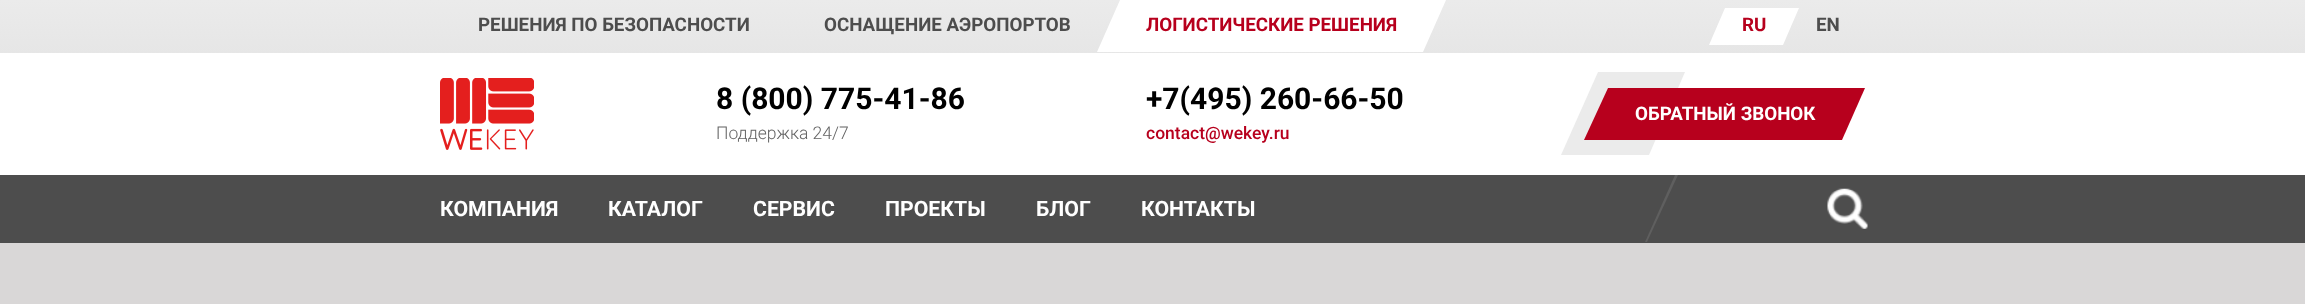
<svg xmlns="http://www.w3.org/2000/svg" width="2305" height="304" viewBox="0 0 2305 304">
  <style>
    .t1 { font: bold 18.75px Roboto; fill: #4d4d4d; }
    .t2 { font: bold 18.75px Roboto; fill: #b7001d; }
    .t3 { font: bold 30px Roboto; fill: #000; }
    .t4 { font: 300 17.5px Roboto; fill: #656565; }
    .t5 { font: 500 17.5px Roboto; fill: #b7001d; }
    .t6 { font: bold 18.75px Roboto; fill: #fff; }
    .t7 { font: bold 21.25px Roboto; fill: #fff; }
  </style>
  <defs>
    <linearGradient id="g1" gradientUnits="userSpaceOnUse" x1="1153" y1="0" x2="1153" y2="53"><stop offset="0" stop-color="#ebebeb"/><stop offset="1" stop-color="#e6e6e6"/></linearGradient>
  </defs>
  <rect width="100%" height="100%" fill="#fff"/>
  <rect x="0" y="0" width="2305" height="53" fill="url(#g1)"/>
  <text x="478" y="31" class="t1">РЕШЕНИЯ ПО БЕЗОПАСНОСТИ</text>
  <text x="824" y="31" class="t1">ОСНАЩЕНИЕ АЭРОПОРТОВ</text>
  <path d="M1120 0H1446L1423 52H1097Z" fill="#fff"/>
  <text x="1146" y="31" class="t2">ЛОГИСТИЧЕСКИЕ РЕШЕНИЯ</text>
  <path d="M1725 8H1799L1783 45H1709Z" fill="#fff"/>
  <text x="1742" y="31" class="t2">RU</text>
  <text x="1816" y="31" class="t1">EN</text>
  <image x="440" y="78" width="94" height="72" href="images/1.png"/>
  <text x="716" y="109" class="t3">8 (800) 775-41-86</text>
  <text x="716" y="139" class="t4">Поддержка 24/7</text>
  <text x="1146" y="109" class="t3">+7(495) 260-66-50</text>
  <text x="1146" y="139" class="t5">contact@wekey.ru</text>
  <path d="M1598 72H1685L1649 155H1561Z" fill="#ebebeb"/>
  <path d="M1608 88H1865L1842 140H1584Z" fill="#b7001d"/>
  <text x="1635" y="120" class="t6">ОБРАТНЫЙ ЗВОНОК</text>
  <rect x="0" y="175" width="2305" height="68" fill="#4d4d4d"/>
  <text x="440" y="216" class="t7">КОМПАНИЯ</text>
  <text x="608" y="216" class="t7">КАТАЛОГ</text>
  <text x="753" y="216" class="t7">СЕРВИС</text>
  <text x="885" y="216" class="t7">ПРОЕКТЫ</text>
  <text x="1036" y="216" class="t7">БЛОГ</text>
  <text x="1141" y="216" class="t7">КОНТАКТЫ</text>
  <path d="M1675 175H1678L1647 242H1645Z" fill="#5f5f5f"/>
  <image x="1827" y="188" width="41" height="41" href="images/2.png"/>
  <rect x="0" y="243" width="2305" height="61" fill="#d9d7d7"/>
</svg>
